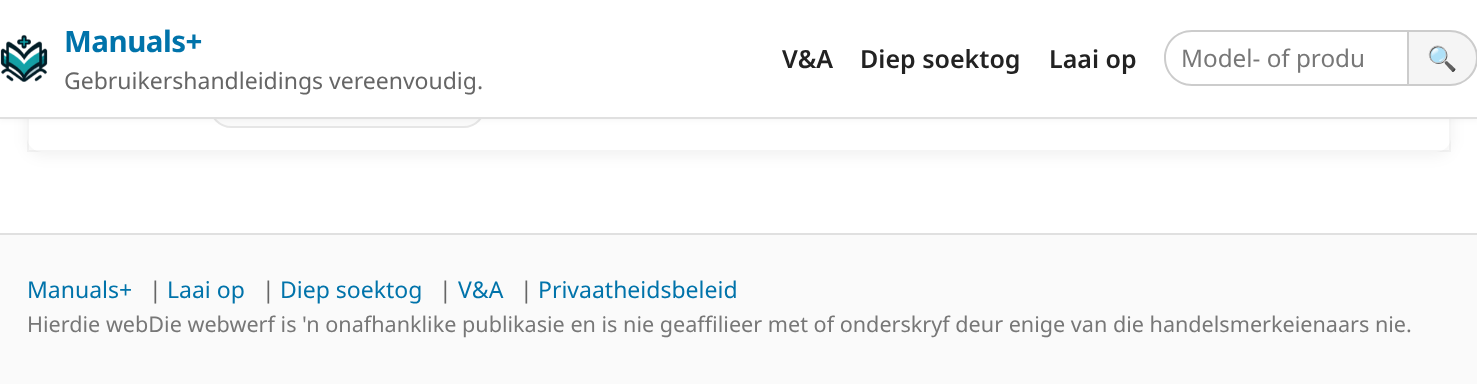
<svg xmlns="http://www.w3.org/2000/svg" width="1477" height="384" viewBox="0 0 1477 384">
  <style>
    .t1 { font: bold 29.5px Noto Sans; letter-spacing: -0.5px; fill: #0073aa; }
    .t2 { font: 23px Noto Sans; fill: #666; }
    .t3 { font: 600 25px Noto Sans; fill: #222; }
    .t4 { font: 24.25px Noto Sans; fill: #777; }
    .t5 { font: 24.25px Noto Color Emoji; fill: #000; }
    .t6 { font: 23px Noto Sans; fill: #0073aa; }
    .t7 { font: 21.6px Noto Sans; fill: #777; }
  </style>
  <rect width="100%" height="100%" fill="#fff"/>
  <rect x="27" y="-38" width="1424" height="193" rx="15" fill="#0000000f" filter="blur(7.5px)"/>
  <rect x="27" y="-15" width="1424" height="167" rx="15" fill="#fff"/>
  <rect x="28" y="-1" width="1422" height="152" fill="none" stroke="#0000000a" stroke-width="2"/>
  <rect x="210" y="84" width="275" height="43" rx="21.5" fill="#fafafa" stroke="#e6e6e6" stroke-width="2"/>
  <rect x="0" y="2" width="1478" height="118" fill="#0000000a" filter="blur(3px)"/>
  <rect x="0" y="0" width="1477" height="117" fill="#fff"/>
  <rect x="0" y="117" width="1477" height="2" fill="#e0e0e0"/>
  <image x="0" y="34" width="48" height="48" href="images/1.png"/>
  <text x="64" y="52" class="t1">Manuals+</text>
  <text x="64" y="89" class="t2">Gebruikershandleidings vereenvoudig.</text>
  <text x="782" y="68" class="t3">V&amp;A</text>
  <text x="860" y="68" class="t3">Diep soektog</text>
  <text x="1049" y="68" class="t3">Laai op</text>
  <path d="M1192 30H1407V86H1192C1176 86 1164 73 1164 58C1164 42 1176 30 1192 30ZM1192 32H1407V84H1192C1177 84 1166 72 1166 58C1166 43 1177 32 1192 32Z" fill="#ccc" fill-rule="evenodd"/>
  <text x="1181" y="67" class="t4">Model- of produ</text>
  <path d="M1408 31H1450C1465 31 1477 43 1477 58C1477 73 1465 85 1450 85H1408Z" fill="#f5f5f5" stroke="#ccc" stroke-width="2"/>
  <text x="1427" y="67" class="t5">🔍</text>
  <rect x="0" y="235" width="1477" height="149" fill="#fafafa"/>
  <rect x="0" y="233" width="1477" height="2" fill="#e0e0e0"/>
  <text x="27" y="298" class="t6">Manuals+</text>
  <text x="149" y="298" class="t2">|</text>
  <text x="167" y="298" class="t6">Laai op</text>
  <text x="262" y="298" class="t2">|</text>
  <text x="280" y="298" class="t6">Diep soektog</text>
  <text x="439" y="298" class="t2">|</text>
  <text x="458" y="298" class="t6">V&amp;A</text>
  <text x="520" y="298" class="t2">|</text>
  <text x="538" y="298" class="t6">Privaatheidsbeleid</text>
  <text x="27" y="332" class="t7">Hierdie webDie webwerf is 'n onafhanklike publikasie en is nie geaffilieer met of onderskryf deur enige van die handelsmerkeienaars nie.</text>
</svg>
